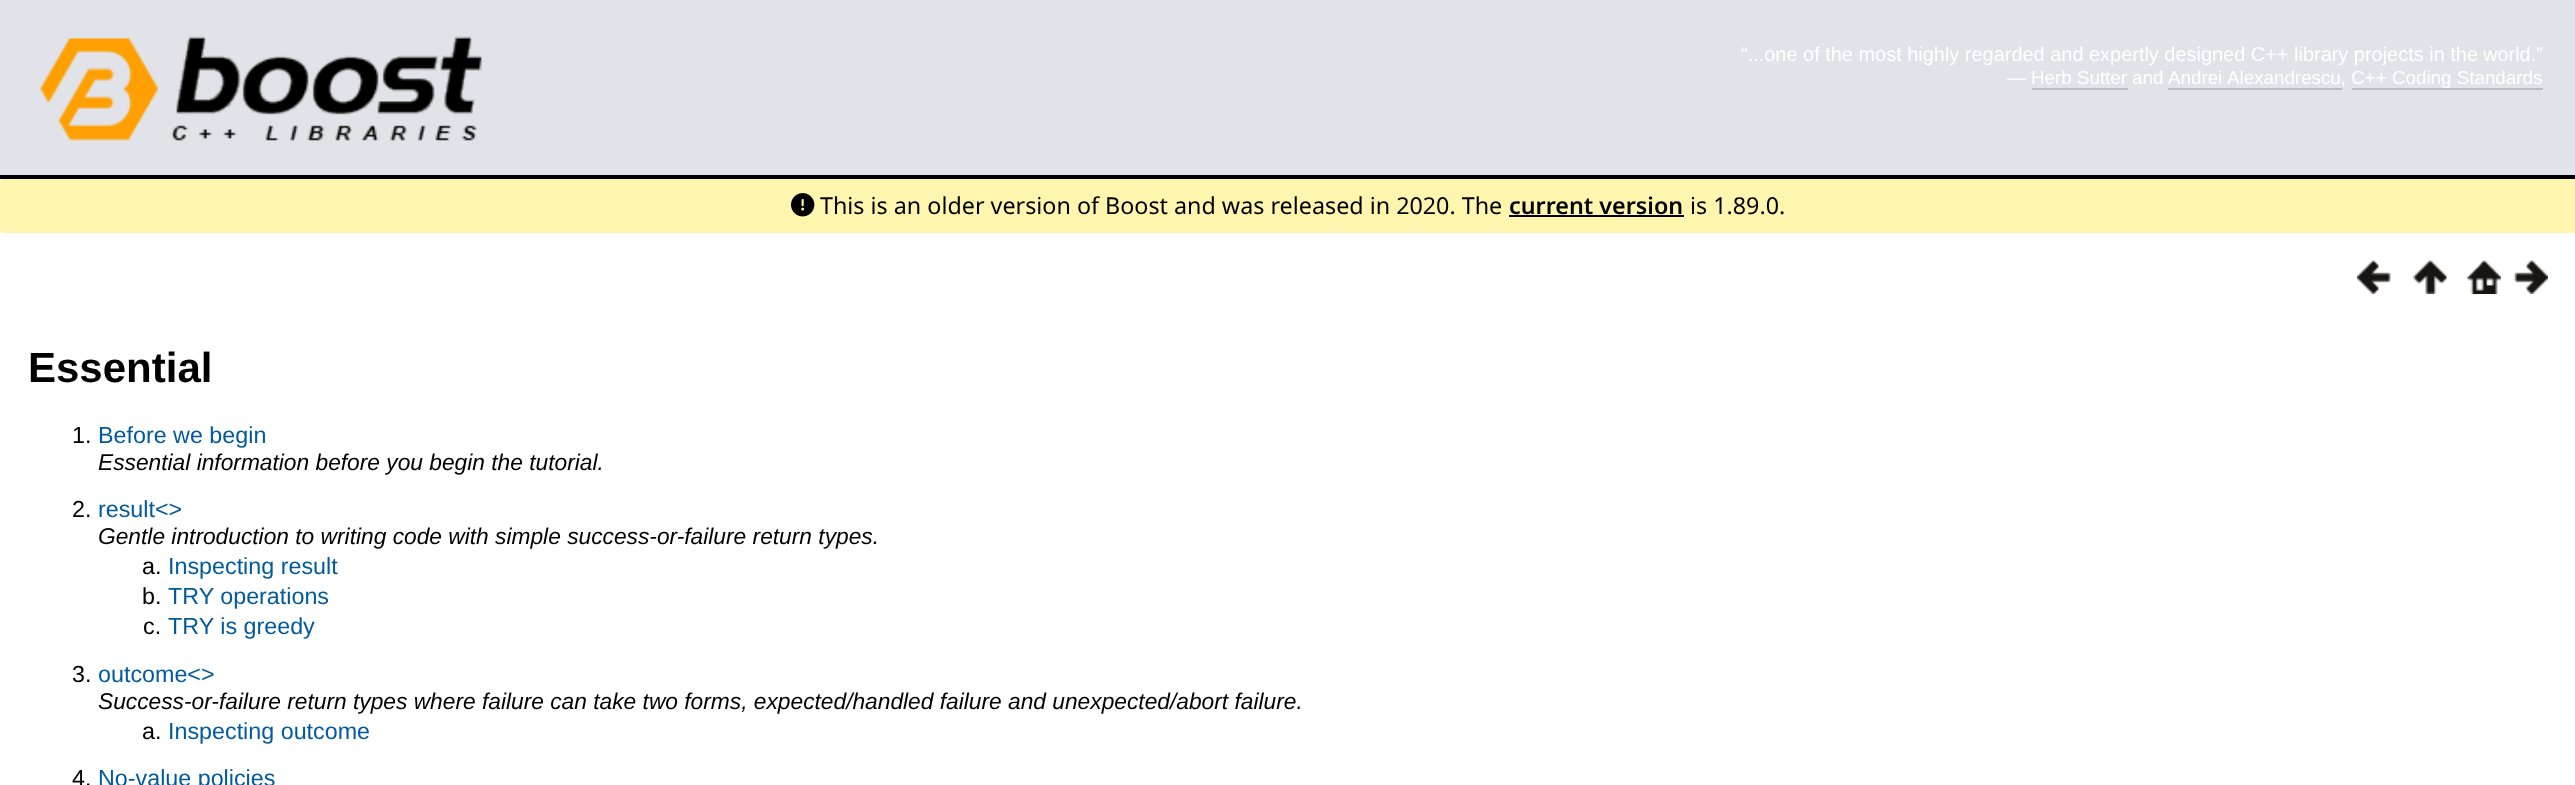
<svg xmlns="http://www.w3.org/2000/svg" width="2575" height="785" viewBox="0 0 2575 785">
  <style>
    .t1 { font: 19.95px Liberation Sans; fill: #fff; }
    .t2 { font: 18.8px Liberation Sans; fill: #fff; }
    .t3 { font: 23.3px Noto Sans; fill: #000; }
    .t4 { font: 600 23.3px Noto Sans; fill: #000; }
    .t5 { font: bold 42px Liberation Sans; fill: #000; }
    .t6 { font: 23.3px Liberation Sans; fill: #000; }
    .t7 { font: 23.3px Liberation Sans; fill: #005a9c; }
    .t8 { font: italic 22.75px Liberation Sans; fill: #000; }
  </style>
  <rect width="100%" height="100%" fill="#fff"/>
  <rect x="0" y="0" width="2575" height="175" fill="#e1e3e8"/>
  <rect x="0" y="175" width="2575" height="4" fill="#000"/>
  <image x="39" y="36" width="443" height="105" href="images/1.png"/>
  <text x="1741" y="61" class="t1">“...one of the most highly regarded and expertly designed C++ library projects in the</text>
  <text x="2483" y="61" class="t1">world.”</text>
  <text x="2007" y="84" class="t2">— Herb Sutter</text>
  <text x="2132" y="84" class="t2">and</text>
  <text x="2168" y="84" class="t2">Andrei</text>
  <text x="2227" y="84" class="t2">Alexandrescu, C++ Coding Standards</text>
  <rect x="2168" y="88" width="174" height="2" fill="#bbb"/>
  <rect x="2032" y="88" width="96" height="2" fill="#bbb"/>
  <rect x="2352" y="88" width="191" height="2" fill="#bbb"/>
  <rect x="0" y="179" width="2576" height="54" rx="4" fill="#fef5ae"/>
  <image x="791" y="193" width="24" height="24" href="images/2.png"/>
  <text x="820" y="214" class="t3">This is an older version of Boost and was released in 2020. The</text>
  <text x="1509" y="214" class="t4">current version</text>
  <rect x="1509" y="215" width="175" height="2" fill="#000"/>
  <text x="1690" y="214" class="t3">is 1.89.0.</text>
  <image x="2357" y="260" width="34" height="34" href="images/3.png"/>
  <image x="2413" y="260" width="34" height="34" href="images/4.png"/>
  <image x="2467" y="260" width="34" height="34" href="images/5.png"/>
  <image x="2514" y="260" width="34" height="34" href="images/6.png"/>
  <text x="28" y="382" class="t5">Essential</text>
  <text x="72" y="443" class="t6">1.</text>
  <text x="98" y="443" class="t7">Before we begin</text>
  <text x="98" y="470" class="t8">Essential information before you begin the tutorial.</text>
  <text x="72" y="517" class="t6">2.</text>
  <text x="98" y="517" class="t7">result&lt;&gt;</text>
  <text x="98" y="544" class="t8">Gentle introduction to writing code with simple success-or-failure return types.</text>
  <text x="142" y="574" class="t6">a.</text>
  <text x="168" y="574" class="t7">Inspecting result</text>
  <text x="142" y="604" class="t6">b.</text>
  <text x="168" y="604" class="t7">TRY operations</text>
  <text x="143" y="634" class="t6">c.</text>
  <text x="168" y="634" class="t7">TRY is greedy</text>
  <text x="72" y="682" class="t6">3.</text>
  <text x="98" y="682" class="t7">outcome&lt;&gt;</text>
  <text x="98" y="709" class="t8">Success-or-failure return types where failure can take two forms, expected/handled failure and unexpected/abort failure.</text>
  <text x="142" y="739" class="t6">a.</text>
  <text x="168" y="739" class="t7">Inspecting outcome</text>
  <text x="72" y="786" class="t6">4.</text>
  <text x="98" y="786" class="t7">No-value policies</text>
</svg>
